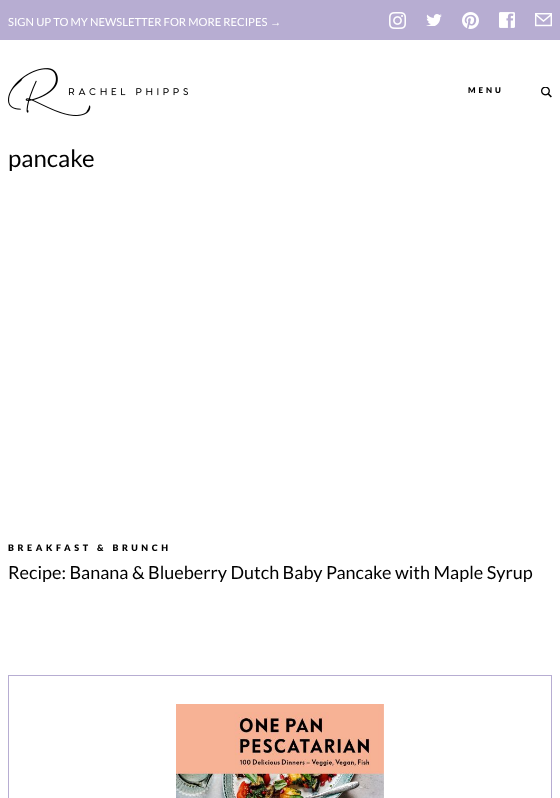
<svg xmlns="http://www.w3.org/2000/svg" width="560" height="798" viewBox="0 0 560 798">
  <style>
    .t1 { font: 11.2px Lato; fill: #fff; }
    .t2 { font: 11.2px Liberation Sans; fill: #fff; }
    .t3 { font: 900 8px Lato; letter-spacing: 3px; fill: #000; }
    .t4 { font: 24px Lato; fill: #000; }
    .t5 { font: 900 9px Lato; letter-spacing: 3.6px; fill: #000; }
    .t6 { font: 18px Lato; fill: #000; }
  </style>
  <rect width="100%" height="100%" fill="#fff"/>
  <rect x="0" y="0" width="560" height="40" fill="#b7add2"/>
  <text x="8" y="26" class="t1">SIGN UP TO MY NEWSLETTER FOR MORE RECIPES</text>
  <text x="270" y="26" class="t2">→</text>
  <image x="389" y="12" width="17" height="17" href="images/1.png"/>
  <image x="426" y="14" width="16" height="12" href="images/2.png"/>
  <image x="462" y="12" width="17" height="17" href="images/3.png"/>
  <image x="499" y="12" width="16" height="16" href="images/4.png"/>
  <image x="535" y="13" width="17" height="14" href="images/5.png"/>
  <image x="8" y="68" width="180" height="48" href="images/6.png"/>
  <text x="468" y="93" class="t3">MENU</text>
  <image x="541" y="87" width="11" height="11" href="images/7.png"/>
  <text x="8" y="167" class="t4">pancake</text>
  <text x="8" y="551" class="t5">BREAKFAST &amp; BRUNCH</text>
  <text x="8" y="579" class="t6">Recipe: Banana &amp; Blueberry Dutch Baby Pancake with Maple Syrup</text>
  <rect x="8.5" y="675.5" width="543" height="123" fill="none" stroke="#b7add2"/>
  <image x="176" y="704" width="208" height="94" href="images/8.png"/>
</svg>
